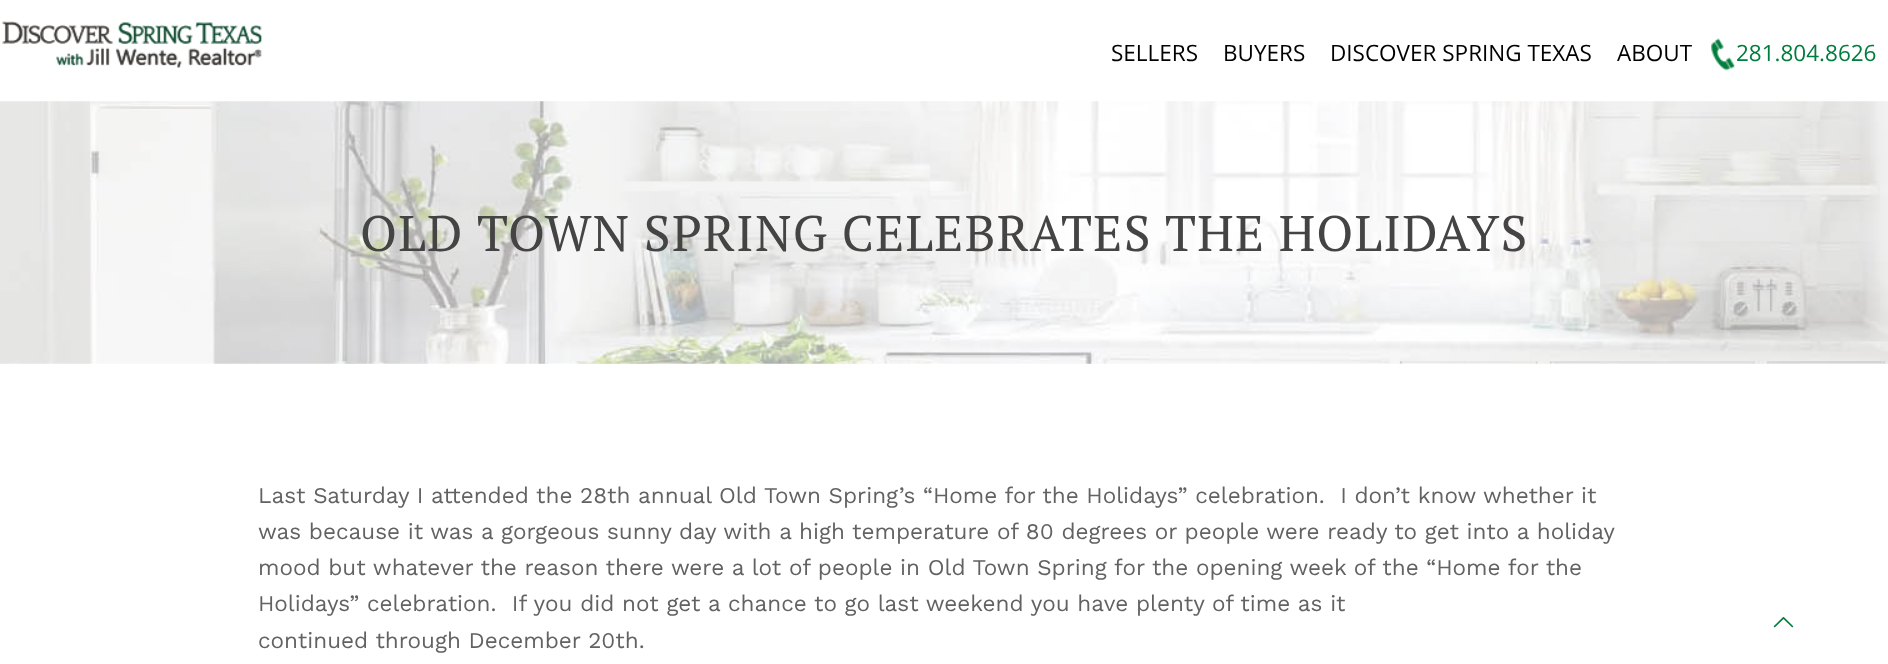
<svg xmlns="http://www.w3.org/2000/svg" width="1888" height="664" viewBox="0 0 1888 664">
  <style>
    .t1 { font: 22.5px Open Sans; fill: #000; }
    .t2 { font: 22.5px Open Sans; fill: #007c3d; }
    .t3 { font: 50px PT Serif; letter-spacing: 1.25px; fill: #444; }
    .t4 { font: 22.5px Work Sans; fill: #626262; }
  </style>
  <rect width="100%" height="100%" fill="#fff"/>
  <image x="2" y="21" width="260" height="47" href="images/1.png"/>
  <text x="1111" y="61" class="t1">SELLERS</text>
  <text x="1223" y="61" class="t1">BUYERS</text>
  <text x="1330" y="61" class="t1">DISCOVER SPRING TEXAS</text>
  <text x="1617" y="61" class="t1">ABOUT</text>
  <image x="1711" y="38" width="24" height="33" href="images/2.png"/>
  <text x="1736" y="61" class="t2">281.804.8626</text>
  <image x="0" y="101" width="1888" height="263" href="images/3.png"/>
  <text x="360" y="251" class="t3">OLD TOWN SPRING CELEBRATES THE HOLIDAYS</text>
  <text x="258" y="503" class="t4" xml:space="preserve">Last Saturday I attended the 28th annual Old Town Spring’s “Home for the Holidays” celebration.  I don’t know whether it</text>
  <text x="258" y="539" class="t4">was because it was a gorgeous sunny day with a high temperature of 80 degrees or people were ready to get into a holiday</text>
  <text x="258" y="575" class="t4">mood but whatever the reason there were a lot of people in Old Town Spring for the opening week of the “Home for the</text>
  <text x="258" y="611" class="t4" xml:space="preserve">Holidays” celebration.  If you did not get a chance to go last weekend you have plenty of time as it</text>
  <text x="258" y="648" class="t4">continued through December 20th.</text>
  <image x="1773" y="616" width="21" height="12" href="images/4.png"/>
</svg>
